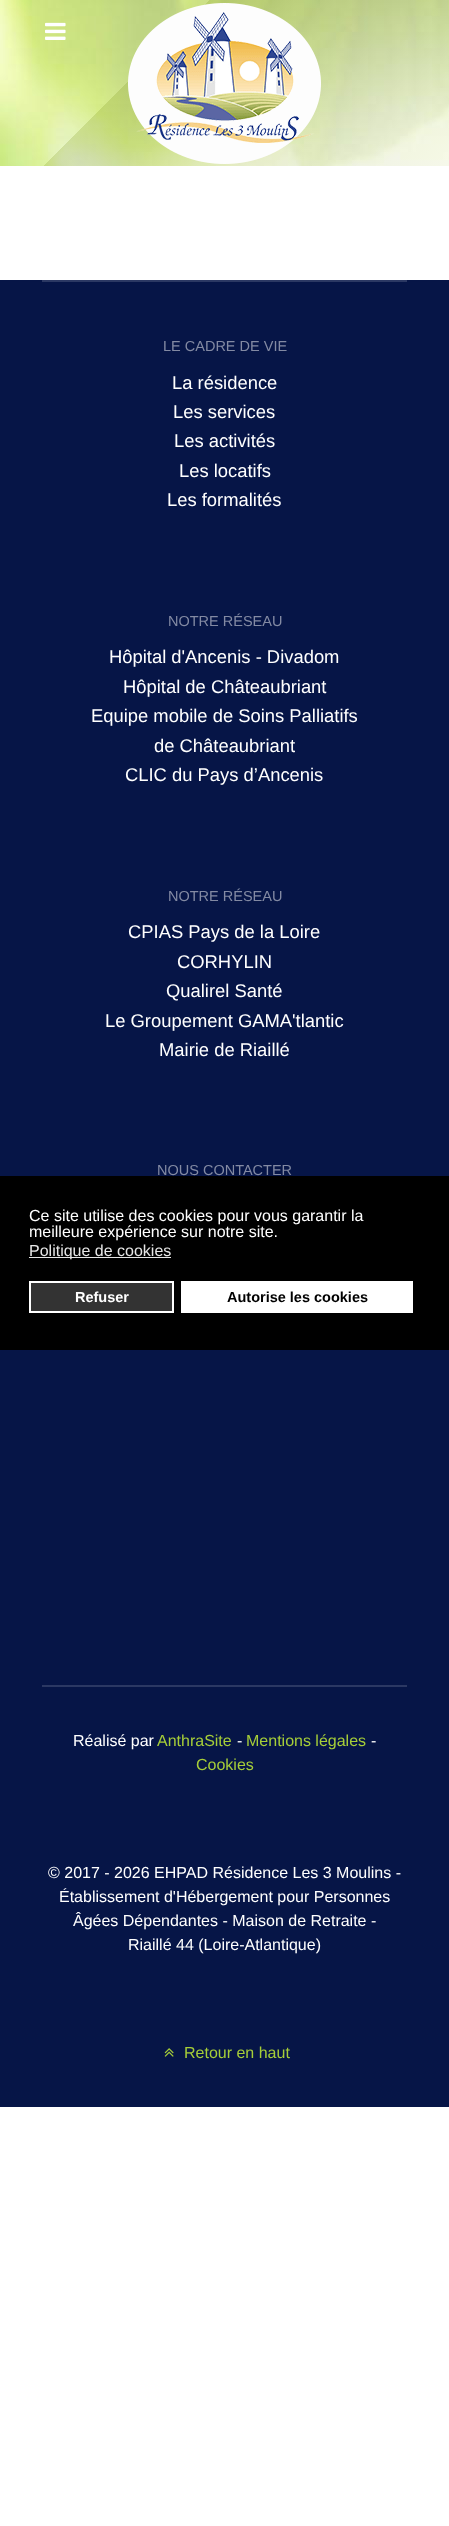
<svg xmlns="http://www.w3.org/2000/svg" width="449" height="2526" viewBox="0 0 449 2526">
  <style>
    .t1 { font: 14.5px Liberation Sans; fill: #838aa3; }
    .t2 { font: 18.4px Liberation Sans; fill: #fff; }
    .t3 { font: 16px Liberation Sans; fill: #fff; }
    .t4 { font: 16px Liberation Sans; fill: #a6ce38; }
    .t5 { font: 16px Liberation Sans; fill: #e6e6e6; }
    .t6 { font: bold 14.5px Liberation Sans; fill: #fff; }
    .t7 { font: bold 14.5px Liberation Sans; fill: #000; }
  </style>
  <defs>
    <linearGradient id="g1" gradientUnits="userSpaceOnUse" x1="-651" y1="-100" x2="349" y2="900"><stop offset="0.48" stop-color="#738d0e" stop-opacity="0"/><stop offset="0.48" stop-color="#738d0e" stop-opacity="0.2"/><stop offset="0.75" stop-color="#738d0e" stop-opacity="0"/></linearGradient>
  </defs>
  <rect width="100%" height="100%" fill="#fff"/>
  <image x="0" y="0" width="449" height="166" href="images/1.png"/>
  <rect x="43" y="0" width="406" height="166" fill="url(#g1)"/>
  <image x="45" y="22" width="21" height="18" href="images/2.png"/>
  <image x="128" y="3" width="193" height="161" href="images/3.png"/>
  <rect x="0" y="280" width="449" height="1827" fill="#061547"/>
  <rect x="42" y="280" width="365" height="2" fill="#2b3863"/>
  <text x="163" y="351" class="t1">LE CADRE DE VIE</text>
  <text x="172" y="389" class="t2">La résidence</text>
  <text x="173" y="418" class="t2">Les services</text>
  <text x="174" y="447" class="t2">Les activités</text>
  <text x="179" y="477" class="t2">Les locatifs</text>
  <text x="167" y="506" class="t2">Les formalités</text>
  <text x="168" y="626" class="t1">NOTRE RÉSEAU</text>
  <text x="109" y="663" class="t2">Hôpital d'Ancenis - Divadom</text>
  <text x="123" y="693" class="t2">Hôpital de Châteaubriant</text>
  <text x="91" y="722" class="t2">Equipe mobile de Soins Palliatifs</text>
  <text x="154" y="752" class="t2">de Châteaubriant</text>
  <text x="125" y="781" class="t2">CLIC du Pays d’Ancenis</text>
  <text x="168" y="901" class="t1">NOTRE RÉSEAU</text>
  <text x="128" y="938" class="t2">CPIAS Pays de la Loire</text>
  <text x="177" y="968" class="t2">CORHYLIN</text>
  <text x="166" y="997" class="t2">Qualirel Santé</text>
  <text x="105" y="1027" class="t2">Le Groupement GAMA'tlantic</text>
  <text x="159" y="1056" class="t2">Mairie de Riaillé</text>
  <text x="157" y="1175" class="t1">NOUS CONTACTER</text>
  <rect x="42" y="1685" width="365" height="2" fill="#2b3863"/>
  <text x="73" y="1746" class="t3">Réalisé par</text>
  <text x="157" y="1746" class="t4">AnthraSite</text>
  <text x="237" y="1746" class="t3">-</text>
  <text x="246" y="1746" class="t4">Mentions légales</text>
  <text x="371" y="1746" class="t3">-</text>
  <text x="196" y="1770" class="t4">Cookies</text>
  <text x="48" y="1878" class="t3">© 2017 - 2026 EHPAD Résidence Les 3 Moulins -</text>
  <text x="59" y="1902" class="t3">Établissement d'Hébergement pour Personnes</text>
  <text x="73" y="1926" class="t3">Âgées Dépendantes - Maison de Retraite -</text>
  <text x="128" y="1950" class="t3">Riaillé 44 (Loire-Atlantique)</text>
  <image x="164" y="2048" width="10" height="9" href="images/4.png"/>
  <text x="184" y="2058" class="t4">Retour en haut</text>
  <rect x="0" y="1176" width="449" height="174" fill="#000"/>
  <text x="29" y="1221" class="t3">Ce site utilise des cookies pour vous garantir la</text>
  <text x="29" y="1237" class="t3">meilleure expérience sur notre site.</text>
  <rect x="29" y="1257" width="142" height="1" fill="#e6e6e6"/>
  <text x="29" y="1256" class="t5">Politique de cookies</text>
  <rect x="30" y="1282" width="143" height="30" fill="#333" stroke="#fff" stroke-width="2"/>
  <text x="75" y="1302" class="t6">Refuser</text>
  <rect x="181" y="1281" width="232" height="32" fill="#fff"/>
  <text x="227" y="1302" class="t7">Autorise les cookies</text>
</svg>
